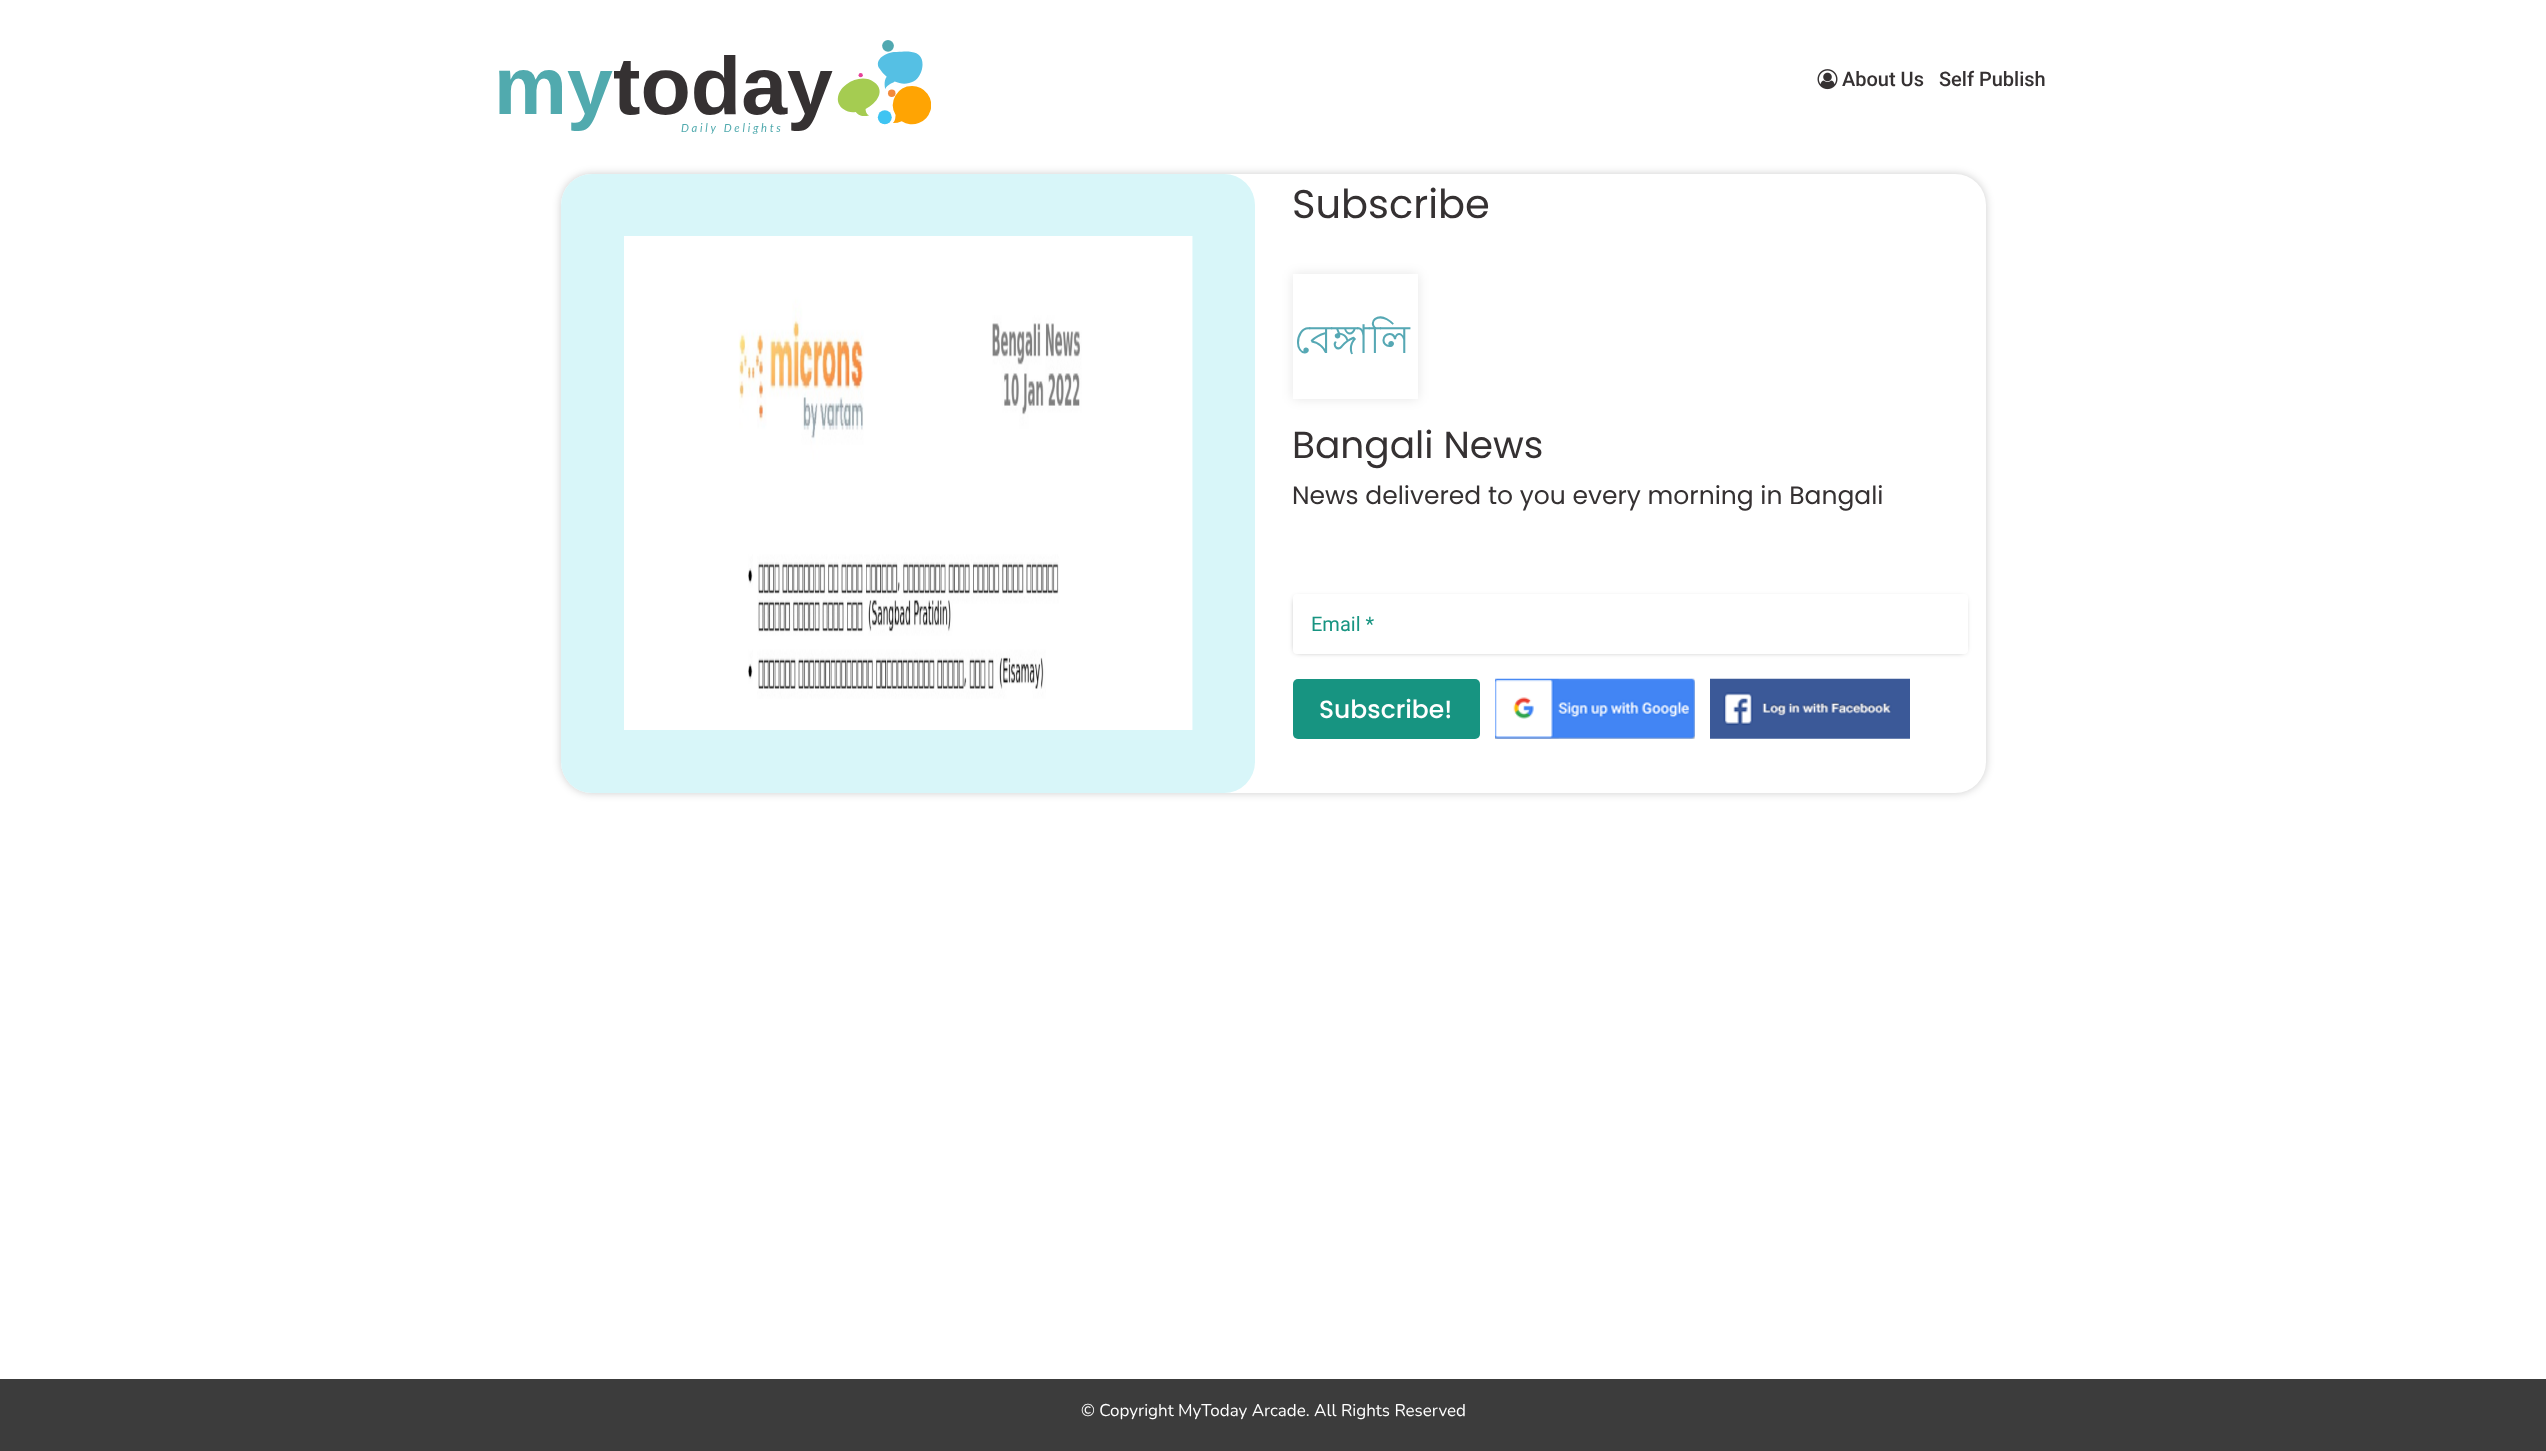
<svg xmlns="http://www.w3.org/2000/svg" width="2546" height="1451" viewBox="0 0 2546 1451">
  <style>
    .t1 { font: 500 20px Roboto; fill: #353132; }
    .t2 { font: 40px Poppins; fill: #353132; }
    .t3 { font: 37.5px Poppins; fill: #353132; }
    .t4 { font: 25px Poppins; fill: #353132; }
    .t5 { font: 20px Roboto; fill: #179481; }
    .t6 { font: 500 25px Poppins; fill: #fff; }
    .t7 { font: 17px Nunito; fill: #fff; }
  </style>
  <rect width="100%" height="100%" fill="#fff"/>
  <image x="499" y="40" width="432" height="94" href="images/1.png"/>
  <image x="1817" y="69" width="21" height="21" href="images/2.png"/>
  <text x="1842" y="86" class="t1">About Us</text>
  <text x="1939" y="86" class="t1">Self Publish</text>
  <rect x="561" y="174" width="1425" height="619" rx="31" fill="#00000033" filter="blur(4px)"/>
  <rect x="561" y="174" width="1425" height="619" rx="31" fill="#fff"/>
  <rect x="561" y="174" width="694" height="619" rx="31" fill="#d8f6f9"/>
  <image x="624" y="236" width="569" height="494" href="images/3.png"/>
  <text x="1292" y="218" class="t2">Subscribe</text>
  <rect x="1293" y="274" width="125" height="125" fill="#0000001a" filter="blur(6px)"/>
  <rect x="1293" y="274" width="125" height="125" fill="#fff"/>
  <image x="1297" y="316" width="114" height="39" href="images/4.png"/>
  <text x="1292" y="458" class="t3">Bangali News</text>
  <text x="1292" y="504" class="t4">News delivered to you every morning in Bangali</text>
  <rect x="1296" y="599" width="668" height="52" fill="#00000099" filter="blur(3px)"/>
  <rect x="1293" y="594" width="675" height="60" rx="4" fill="#fff"/>
  <text x="1311" y="631" class="t5">Email *</text>
  <rect x="1293" y="679" width="187" height="60" rx="5" fill="#179481"/>
  <text x="1319" y="718" class="t6">Subscribe!</text>
  <image x="1495" y="678" width="200" height="61" href="images/5.png"/>
  <image x="1710" y="678" width="200" height="61" href="images/6.png"/>
  <rect x="0" y="1379" width="2546" height="72" fill="#3c3c3c"/>
  <text x="1081" y="1416" class="t7">© Copyright MyToday Arcade. All Rights Reserved</text>
</svg>
